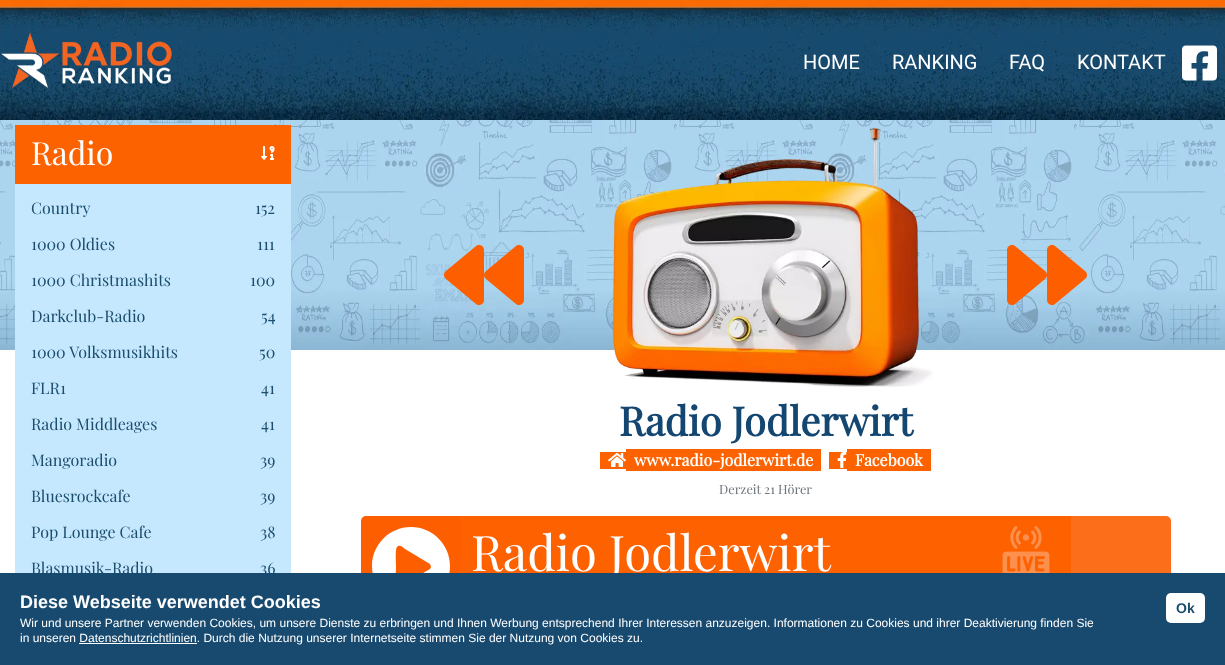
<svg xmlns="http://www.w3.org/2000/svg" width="1225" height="665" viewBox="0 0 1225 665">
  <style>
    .t1 { font: 20px Roboto; fill: #fff; }
    .t2 { font: 32px Playfair Display; fill: #fff; }
    .t3 { font: 16px Playfair Display; fill: #1b4d6c; }
    .t4 { font: bold 40px Playfair Display; fill: #134671; }
    .t5 { font: bold 16px Playfair Display; fill: #fff; }
    .t6 { font: 12.75px Playfair Display; fill: #6c757d; }
    .t7 { font: 49px Playfair Display; fill: #fff; }
    .t8 { font: bold 18px Liberation Sans; fill: #fff; }
    .t9 { font: bold 14px Liberation Sans; fill: #1b4d6c; }
    .t10 { font: 12px Liberation Sans; fill: #fff; }
  </style>
  <rect width="100%" height="100%" fill="#fff"/>
  <image x="0" y="0" width="1225" height="120" href="images/1.png"/>
  <image x="1" y="32" width="171" height="56" href="images/2.png"/>
  <text x="803" y="69" class="t1">HOME</text>
  <text x="892" y="69" class="t1">RANKING</text>
  <text x="1009" y="69" class="t1">FAQ</text>
  <text x="1077" y="69" class="t1">KONTAKT</text>
  <image x="1182" y="45" width="35" height="36" href="images/3.png"/>
  <image x="0" y="120" width="1225" height="230" href="images/4.png"/>
  <rect x="15" y="184" width="276" height="389" fill="#c5e8ff"/>
  <rect x="15" y="125" width="276" height="59" fill="#fc6300"/>
  <text x="31" y="165" class="t2">Radio</text>
  <image x="261" y="146" width="14" height="14" href="images/5.png"/>
  <text x="31" y="214" class="t3">Country</text>
  <text x="255" y="214" class="t3">152</text>
  <text x="31" y="250" class="t3">1000 Oldies</text>
  <text x="257" y="250" class="t3">111</text>
  <text x="31" y="286" class="t3">1000 Christmashits</text>
  <text x="250" y="286" class="t3">100</text>
  <text x="31" y="322" class="t3">Darkclub-Radio</text>
  <text x="261" y="322" class="t3">54</text>
  <text x="31" y="358" class="t3">1000 Volksmusikhits</text>
  <text x="259" y="358" class="t3">50</text>
  <text x="31" y="394" class="t3">FLR1</text>
  <text x="261" y="394" class="t3">41</text>
  <text x="31" y="430" class="t3">Radio Middleages</text>
  <text x="261" y="430" class="t3">41</text>
  <text x="31" y="466" class="t3">Mangoradio</text>
  <text x="260" y="466" class="t3">39</text>
  <text x="31" y="502" class="t3">Bluesrockcafe</text>
  <text x="260" y="502" class="t3">39</text>
  <text x="31" y="538" class="t3">Pop Lounge Cafe</text>
  <text x="260" y="538" class="t3">38</text>
  <text x="31" y="574" class="t3">Blasmusik-Radio</text>
  <text x="260" y="574" class="t3">36</text>
  <image x="444" y="244" width="80" height="62" href="images/6.png"/>
  <image x="612" y="127" width="321" height="260" href="images/7.png"/>
  <image x="1007" y="244" width="80" height="62" href="images/8.png"/>
  <text x="619" y="436" class="t4">Radio Jodlerwirt</text>
  <rect x="600" y="452" width="26" height="17" fill="#fc6300"/>
  <rect x="626" y="449" width="195" height="22" fill="#fc6300"/>
  <image x="608" y="453" width="18" height="14" href="images/9.png"/>
  <text x="634" y="466" class="t5">www.radio-jodlerwirt.de</text>
  <rect x="829" y="452" width="18" height="17" fill="#fc6300"/>
  <rect x="847" y="449" width="84" height="22" fill="#fc6300"/>
  <image x="837" y="452" width="10" height="16" href="images/10.png"/>
  <text x="855" y="466" class="t5">Facebook</text>
  <text x="719" y="494" class="t6">Derzeit 21 Hörer</text>
  <rect x="361" y="516" width="810" height="100" rx="5" fill="#fd5e00"/>
  <rect x="461" y="516" width="610" height="57" fill="#fd6100"/>
  <path d="M1071 516H1166C1169 516 1171 518 1171 521V611C1171 614 1169 616 1166 616H1071Z" fill="#ffffff1a"/>
  <path d="M450 566C450 587 433 605 411 605C389 605 372 587 372 566C372 545 389 527 411 527C433 527 450 545 450 566ZM396 566C396 570 395 583 397 585C398 586 399 586 401 586L430 569L431 567L430 564L405 549C403 547 399 544 397 547C395 549 396 563 396 566Z" fill="#fff"/>
  <text x="471" y="571" class="t7">Radio Jodlerwirt</text>
  <image x="1002" y="526" width="48" height="47" href="images/11.png"/>
  <rect x="0" y="573" width="1225" height="92" fill="#184a6f"/>
  <text x="20" y="608" class="t8">Diese Webseite verwendet Cookies</text>
  <rect x="1166" y="593" width="39" height="30" rx="5" fill="#fff"/>
  <text x="1176" y="613" class="t9">Ok</text>
  <text x="20" y="627" class="t10">Wir und unsere Partner verwenden Cookies, um unsere Dienste zu erbringen und Ihnen Werbung entsprechend Ihrer Interessen anzuzeigen. Informationen zu Cookies und ihrer Deaktivierung finden Sie</text>
  <text x="20" y="642" class="t10">in unseren Datenschutzrichtlinien. Durch die Nutzung unserer Internetseite stimmen Sie der Nutzung von Cookies zu.</text>
  <rect x="79" y="643" width="118" height="1" fill="#fff"/>
</svg>
